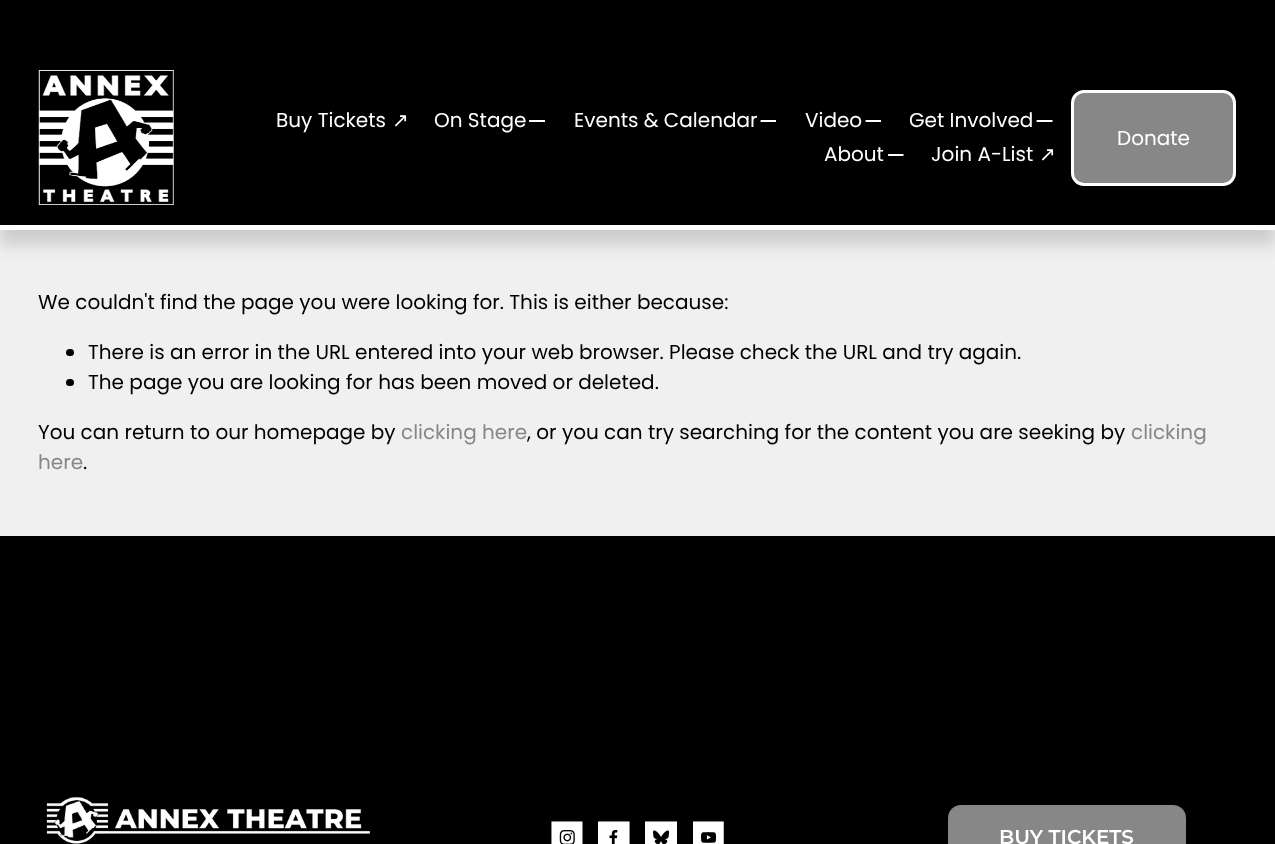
<svg xmlns="http://www.w3.org/2000/svg" width="1275" height="844" viewBox="0 0 1275 844">
  <style>
    .t1 { font: 20px Poppins; fill: #fff; }
    .t2 { font: 20px DejaVu Sans; fill: #fff; }
    .t3 { font: 20px Poppins; fill: #000; }
    .t4 { font: 20px Poppins; fill: #878787; }
    .t5 { font: 600 20px Montserrat; fill: #fff; }
  </style>
  <defs>
    <clipPath id="clip1"><rect x="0" y="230" width="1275" height="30"/></clipPath>
  </defs>
  <rect width="100%" height="100%" fill="#f0f0f0"/>
  <rect x="0" y="0" width="1275" height="225" fill="#000"/>
  <g clip-path="url(#clip1)">
    <rect x="0" y="61" width="1275" height="184" fill="#ccc" filter="blur(7.5px)"/>
  </g>
  <image x="38" y="70" width="136" height="135" href="images/1.png"/>
  <text x="276" y="127" class="t1">Buy Tickets</text>
  <text x="392" y="127" class="t2">↗</text>
  <text x="434" y="127" class="t1">On Stage</text>
  <path d="M537.5 121H545H530" fill="none" stroke="#fff" stroke-width="1.8" stroke-linecap="square"/>
  <text x="574" y="127" class="t1">Events &amp; Calendar</text>
  <path d="M769 121H776H761.5" fill="none" stroke="#fff" stroke-width="1.8" stroke-linecap="square"/>
  <text x="805" y="127" class="t1">Video</text>
  <path d="M874 121H881H866.5" fill="none" stroke="#fff" stroke-width="1.8" stroke-linecap="square"/>
  <text x="909" y="127" class="t1">Get Involved</text>
  <path d="M1045 121H1052.5H1037.5" fill="none" stroke="#fff" stroke-width="1.8" stroke-linecap="square"/>
  <text x="824" y="161" class="t1">About</text>
  <path d="M896 155H903.5H889" fill="none" stroke="#fff" stroke-width="1.8" stroke-linecap="square"/>
  <text x="931" y="161" class="t1">Join A-List</text>
  <text x="1039" y="161" class="t2">↗</text>
  <rect x="1072.5" y="91.5" width="162" height="93" rx="11.5" fill="#878787" stroke="#fff" stroke-width="3"/>
  <text x="1117" y="145" class="t1">Donate</text>
  <rect x="0" y="225" width="1275" height="5" fill="#fff"/>
  <text x="38" y="309" class="t3">We couldn't find the page you were looking for. This is either because:</text>
  <rect x="66" y="349" width="8" height="7" rx="3.5" fill="#000"/>
  <text x="88" y="359" class="t3">There is an error in the URL entered into your web browser. Please check the URL and try again.</text>
  <rect x="66" y="379" width="8" height="7" rx="3.5" fill="#000"/>
  <text x="88" y="389" class="t3">The page you are looking for has been moved or deleted.</text>
  <text x="38" y="439" class="t3">You can return to our homepage by</text>
  <text x="401" y="439" class="t4">clicking here</text>
  <text x="527" y="439" class="t3">, or you can try searching for the content you are seeking by</text>
  <text x="1131" y="439" class="t4">clicking</text>
  <text x="38" y="469" class="t4">here</text>
  <text x="83" y="469" class="t3">.</text>
  <rect x="0" y="536" width="1275" height="308" fill="#000"/>
  <image x="46" y="797" width="324" height="47" href="images/2.png"/>
  <image x="551" y="821" width="32" height="23" href="images/3.png"/>
  <image x="598" y="821" width="32" height="23" href="images/4.png"/>
  <image x="645" y="821" width="32" height="23" href="images/5.png"/>
  <image x="693" y="821" width="31" height="23" href="images/6.png"/>
  <rect x="948" y="805" width="238" height="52" rx="13" fill="#878787"/>
  <text x="999" y="844" class="t5">BUY TICKETS</text>
</svg>
